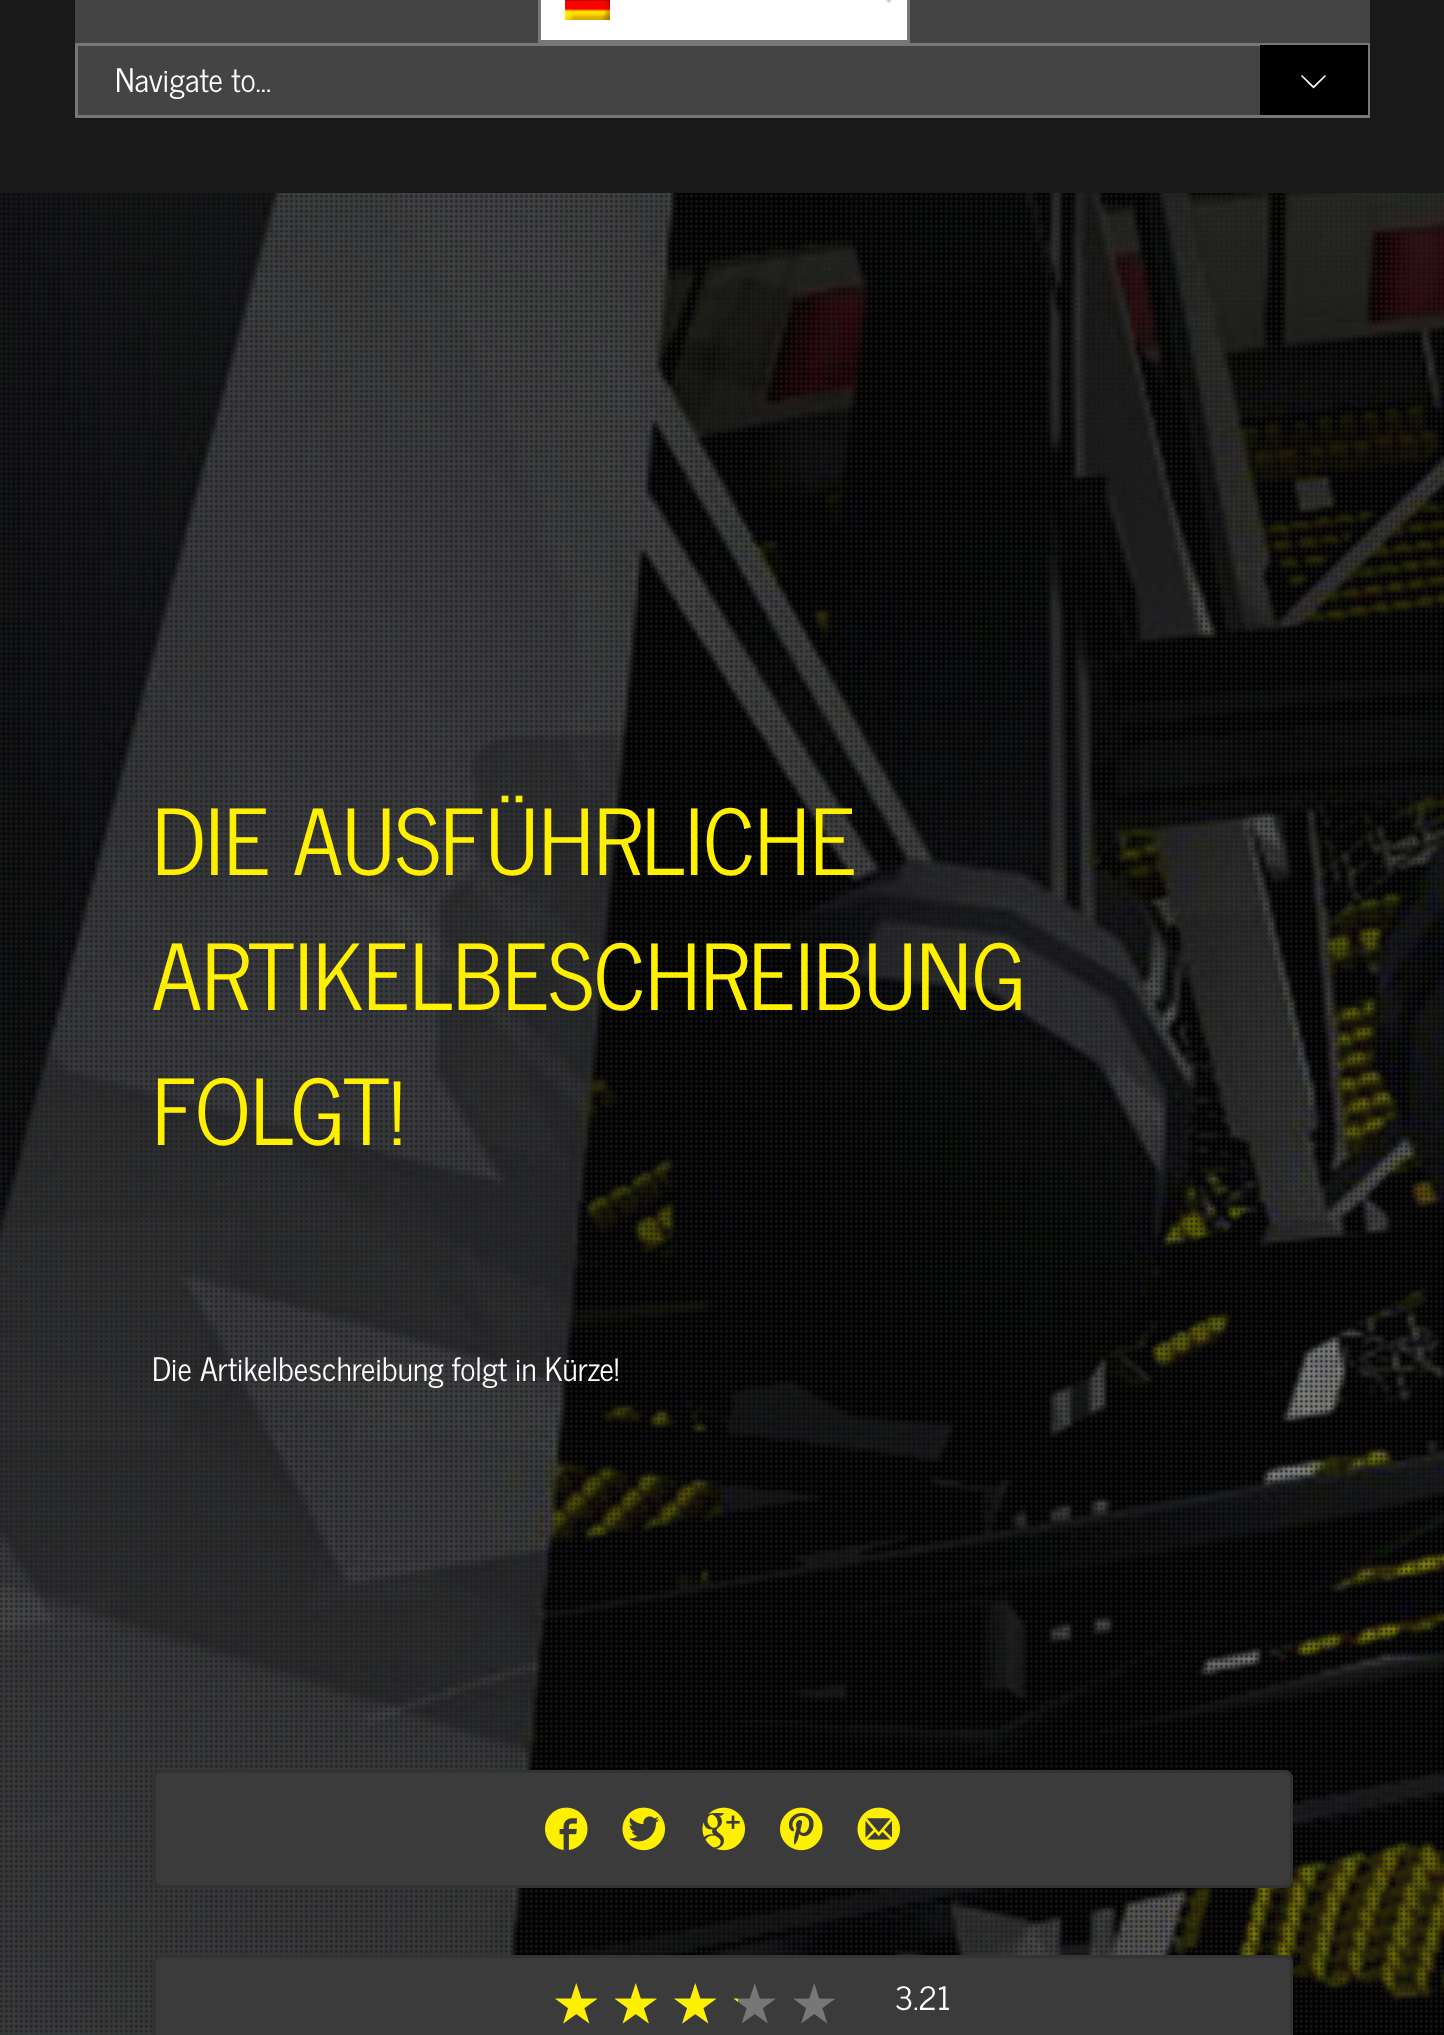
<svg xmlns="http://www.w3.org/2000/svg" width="1444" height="2035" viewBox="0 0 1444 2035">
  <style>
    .t1 { font: 32px News Cycle; fill: #fff; }
    .t2 { font: 90px News Cycle; fill: #fff000; }
  </style>
  <rect width="100%" height="100%" fill="#fff"/>
  <rect x="0" y="0" width="1444" height="193" fill="#191919"/>
  <rect x="75" y="0" width="1295" height="115" fill="#444"/>
  <rect x="541" y="0" width="366" height="40" fill="#fff"/>
  <image x="884" y="0" width="9" height="4" href="images/1.png"/>
  <rect x="539.5" y="-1.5" width="369" height="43" fill="none" stroke="#777" stroke-width="3"/>
  <image x="565" y="0" width="45" height="20" href="images/2.png"/>
  <rect x="76.5" y="44.5" width="1292" height="72" fill="none" stroke="#777" stroke-width="3"/>
  <text x="115" y="92" class="t1">Navigate to...</text>
  <rect x="1260" y="45" width="108" height="70" fill="#000"/>
  <path d="M1326 76L1325 75L1313.5 86L1302 75L1301 76L1313.5 88.5Z" fill="#fff"/>
  <image x="0" y="193" width="1444" height="1842" href="images/3.png"/>
  <image x="0" y="193" width="1444" height="1842" href="images/4.png"/>
  <text x="152" y="875" class="t2">DIE AUSFÜHRLICHE</text>
  <text x="152" y="1010" class="t2">ARTIKELBESCHREIBUNG</text>
  <text x="152" y="1145" class="t2">FOLGT!</text>
  <text x="152" y="1381" class="t1">Die Artikelbeschreibung folgt in Kürze!</text>
  <rect x="154.5" y="1771.5" width="1137" height="115" rx="6.5" fill="#3b3b3b" stroke="#333" stroke-width="3"/>
  <image x="545" y="1807" width="43" height="43" href="images/5.png"/>
  <image x="622" y="1807" width="43" height="44" href="images/6.png"/>
  <image x="702" y="1807" width="43" height="44" href="images/7.png"/>
  <image x="780" y="1807" width="43" height="44" href="images/8.png"/>
  <image x="857" y="1807" width="43" height="44" href="images/9.png"/>
  <rect x="154.5" y="1956.5" width="1137" height="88" rx="6.5" fill="#3b3b3b" stroke="#333" stroke-width="3"/>
  <image x="555" y="1983" width="281" height="41" href="images/10.png"/>
  <image x="555" y="1983" width="183" height="41" href="images/11.png"/>
  <text x="895" y="2010" class="t1">3.21</text>
</svg>
